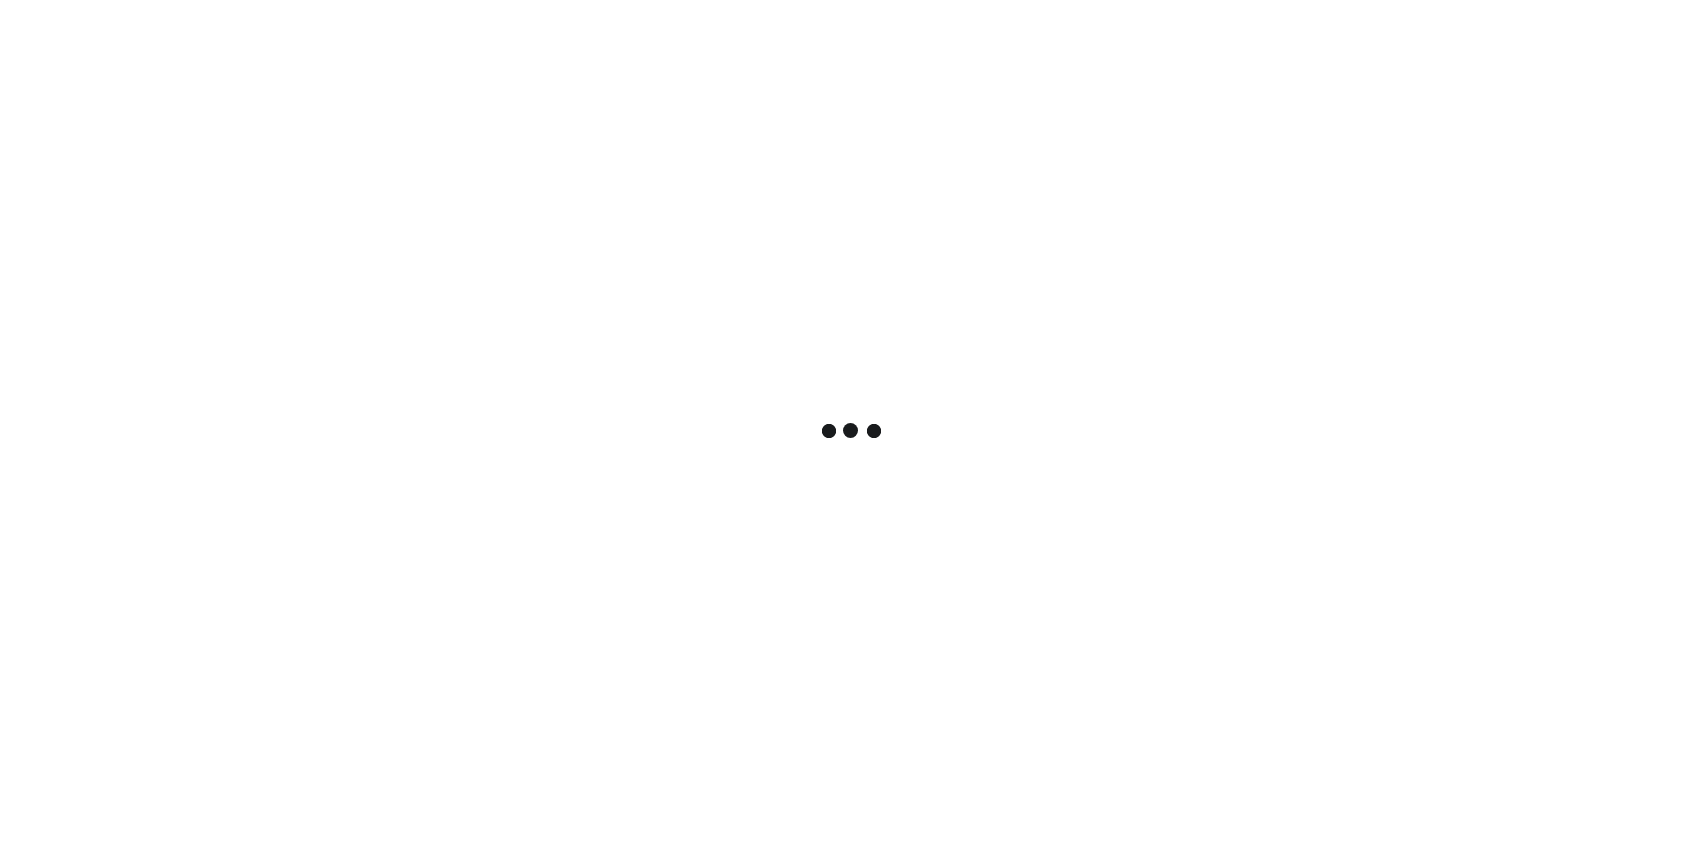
<svg xmlns="http://www.w3.org/2000/svg" width="1701" height="860" viewBox="0 0 1701 860">
  <defs>
    <radialGradient id="g1" gradientUnits="userSpaceOnUse" cx="874" cy="431" r="7.5"><stop offset="0.9" stop-color="#191b1d"/><stop offset="1" stop-color="#fff"/></radialGradient>
    <radialGradient id="g2" gradientUnits="userSpaceOnUse" cx="829" cy="431" r="7.5"><stop offset="0.9" stop-color="#191b1d"/><stop offset="1" stop-color="#fff"/></radialGradient>
  </defs>
  <rect width="100%" height="100%" fill="#fff"/>
  <rect x="867" y="424" width="14" height="14" fill="url(#g1)"/>
  <rect x="822" y="424" width="14" height="14" fill="url(#g2)"/>
  <circle cx="850.5" cy="430.5" r="7.5" fill="#191b1d"/>
</svg>
